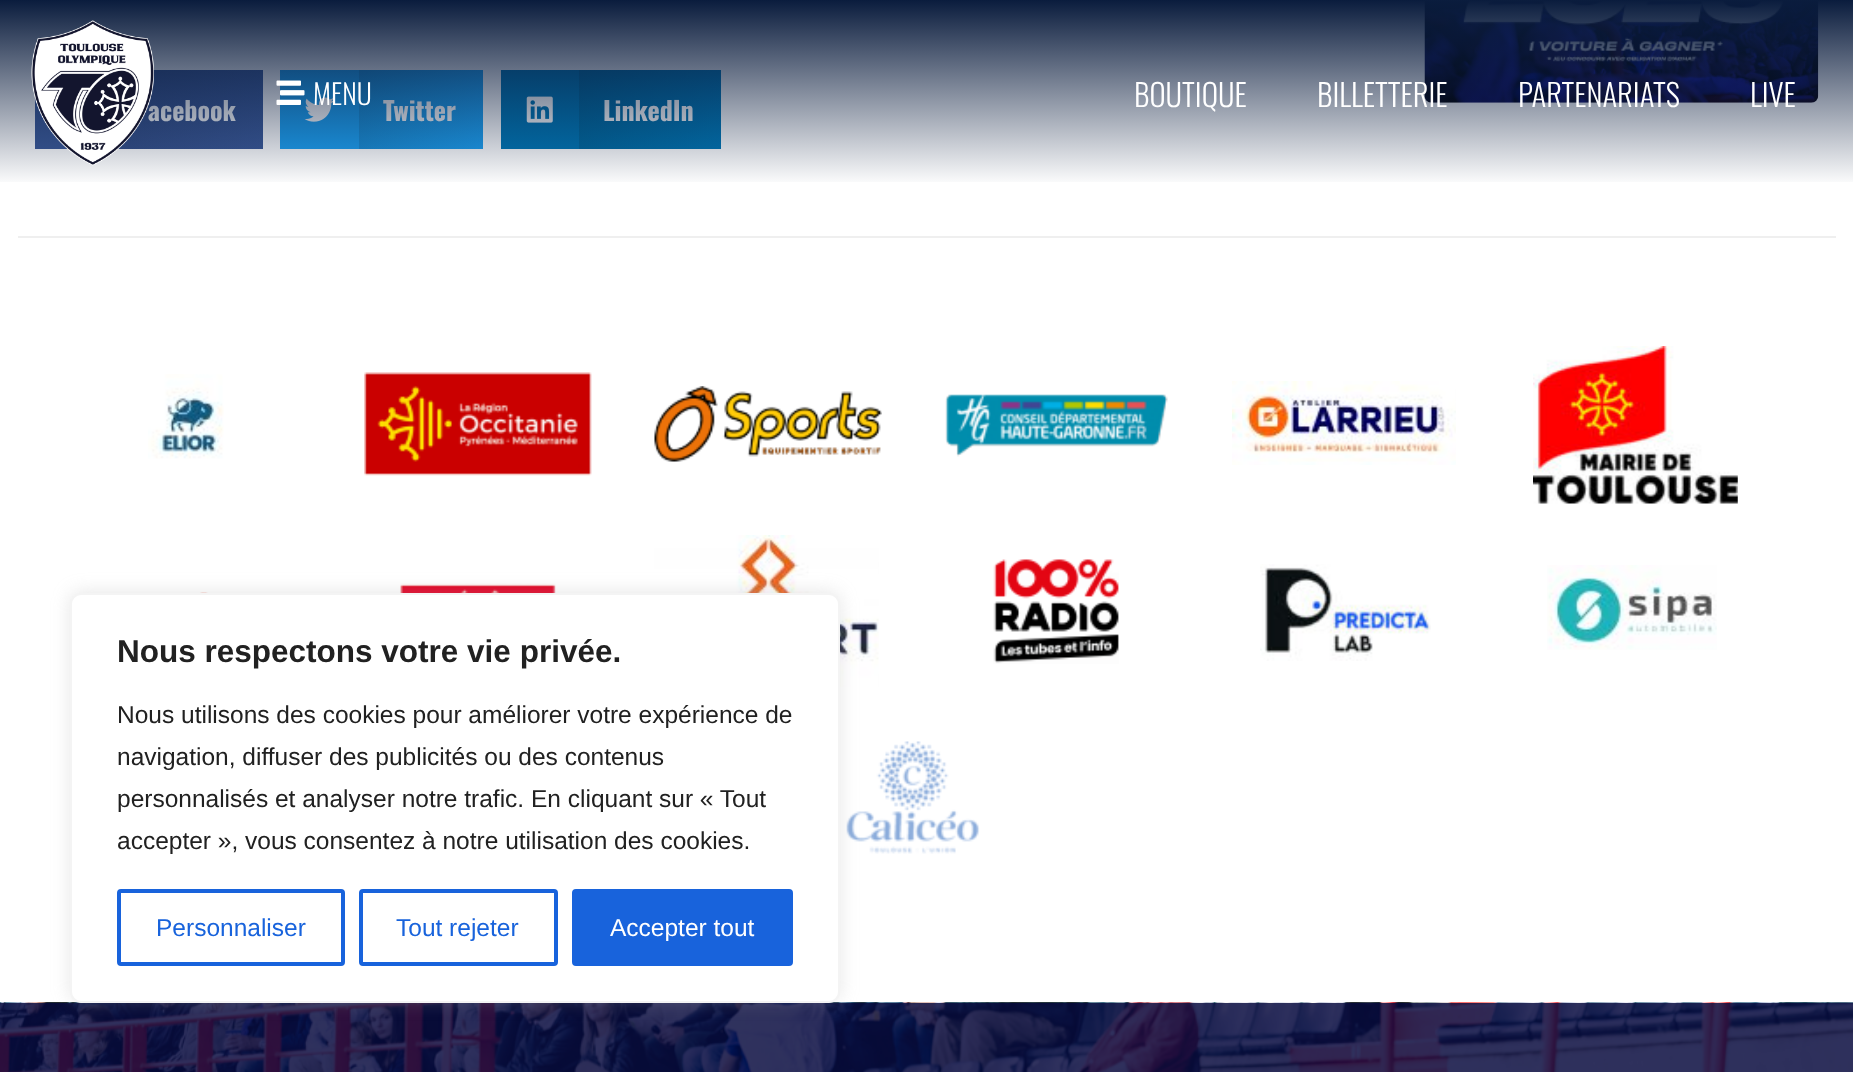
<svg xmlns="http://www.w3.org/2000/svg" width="1853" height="1072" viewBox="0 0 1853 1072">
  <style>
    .t1 { font: bold 26px Oswald; fill: #fff; }
    .t2 { font: 300 28px Oswald; fill: #fff; }
    .t3 { font: 300 30.75px Oswald; fill: #fff; }
    .t4 { font: bold 31.5px Liberation Sans; fill: #212121; }
    .t5 { font: 24.5px Liberation Sans; fill: #212121; }
    .t6 { font: 24.5px Liberation Sans; fill: #1863dc; }
    .t7 { font: 24.5px Liberation Sans; fill: #fff; }
  </style>
  <defs>
    <linearGradient id="g1" gradientUnits="userSpaceOnUse" x1="114" y1="109" x2="263" y2="109"><stop offset="0" stop-color="#344e86"/><stop offset="1" stop-color="#3b5998"/></linearGradient>
    <linearGradient id="g2" gradientUnits="userSpaceOnUse" x1="359" y1="109" x2="483" y2="109"><stop offset="0" stop-color="#1a8ed5"/><stop offset="1" stop-color="#1da1f2"/></linearGradient>
    <linearGradient id="g3" gradientUnits="userSpaceOnUse" x1="579" y1="109" x2="721" y2="109"><stop offset="0" stop-color="#00699f"/><stop offset="1" stop-color="#0077b5"/></linearGradient>
    <linearGradient id="g4" gradientUnits="userSpaceOnUse" x1="927" y1="0" x2="927" y2="186"><stop offset="0" stop-color="#0a1c3d"/><stop offset="1" stop-color="#0a1c3d" stop-opacity="0"/></linearGradient>
  </defs>
  <rect width="100%" height="100%" fill="#fff"/>
  <image x="1424" y="1" width="395" height="102" href="images/3.png"/>
  <rect x="35" y="98" width="33" height="51" fill="#3b5998"/>
  <rect x="118" y="70" width="145" height="79" fill="url(#g1)"/>
  <text x="148" y="121" class="t1">acebook</text>
  <rect x="280" y="70" width="79" height="79" fill="#1da1f2"/>
  <image x="304" y="97" width="31" height="25" href="images/4.png"/>
  <rect x="359" y="70" width="124" height="79" fill="url(#g2)"/>
  <text x="383" y="121" class="t1">Twitter</text>
  <rect x="501" y="70" width="78" height="79" fill="#0077b5"/>
  <image x="526" y="96" width="27" height="27" href="images/5.png"/>
  <rect x="579" y="70" width="142" height="79" fill="url(#g3)"/>
  <text x="603" y="121" class="t1">LinkedIn</text>
  <rect x="0" y="0" width="1853" height="182" fill="url(#g4)"/>
  <image x="31" y="20" width="123" height="146" href="images/1.png"/>
  <image x="276" y="80" width="29" height="25" href="images/2.png"/>
  <text x="313" y="105" class="t2">MENU</text>
  <text x="1134" y="107" class="t3">BOUTIQUE</text>
  <text x="1317" y="107" class="t3">BILLETTERIE</text>
  <text x="1518" y="107" class="t3">PARTENARIATS</text>
  <text x="1750" y="107" class="t3">LIVE</text>
  <rect x="18" y="236" width="1818" height="2" fill="#efefef"/>
  <image x="148" y="374" width="76" height="85" href="images/6.png"/>
  <image x="364" y="372" width="228" height="104" href="images/7.png"/>
  <image x="654" y="386" width="228" height="76" href="images/8.png"/>
  <image x="945" y="394" width="223" height="63" href="images/9.png"/>
  <image x="1232" y="381" width="224" height="84" href="images/10.png"/>
  <image x="1533" y="346" width="205" height="158" href="images/11.png"/>
  <image x="200" y="592" width="8" height="1" href="images/12.png"/>
  <image x="400" y="583" width="156" height="10" href="images/13.png"/>
  <image x="654" y="535" width="225" height="152" href="images/14.png"/>
  <image x="993" y="559" width="126" height="105" href="images/15.png"/>
  <image x="1260" y="564" width="171" height="97" href="images/16.png"/>
  <image x="1547" y="565" width="170" height="85" href="images/17.png"/>
  <image x="846" y="741" width="134" height="113" href="images/18.png"/>
  <image x="0" y="1002" width="1853" height="70" href="images/19.png"/>
  <rect x="70" y="592" width="770" height="409" rx="11" fill="#acabab4d" filter="blur(9px)"/>
  <rect x="71" y="594" width="768" height="408" rx="10" fill="#fff" stroke="#f4f4f4" stroke-width="2"/>
  <text x="117" y="662" class="t4">Nous respectons votre vie privée.</text>
  <text x="117" y="723" class="t5">Nous utilisons des cookies pour améliorer votre expérience de</text>
  <text x="117" y="765" class="t5">navigation, diffuser des publicités ou des contenus</text>
  <text x="117" y="807" class="t5">personnalisés et analyser notre trafic. En cliquant sur « Tout</text>
  <text x="117" y="849" class="t5">accepter », vous consentez à notre utilisation des cookies.</text>
  <rect x="119" y="891" width="224" height="73" rx="2" fill="none" stroke="#1863dc" stroke-width="4"/>
  <text x="156" y="936" class="t6">Personnaliser</text>
  <rect x="361" y="891" width="195" height="73" rx="2" fill="none" stroke="#1863dc" stroke-width="4"/>
  <text x="396" y="936" class="t6">Tout rejeter</text>
  <rect x="574" y="891" width="217" height="73" rx="2" fill="#1863dc" stroke="#1863dc" stroke-width="4"/>
  <text x="610" y="936" class="t7">Accepter tout</text>
</svg>
